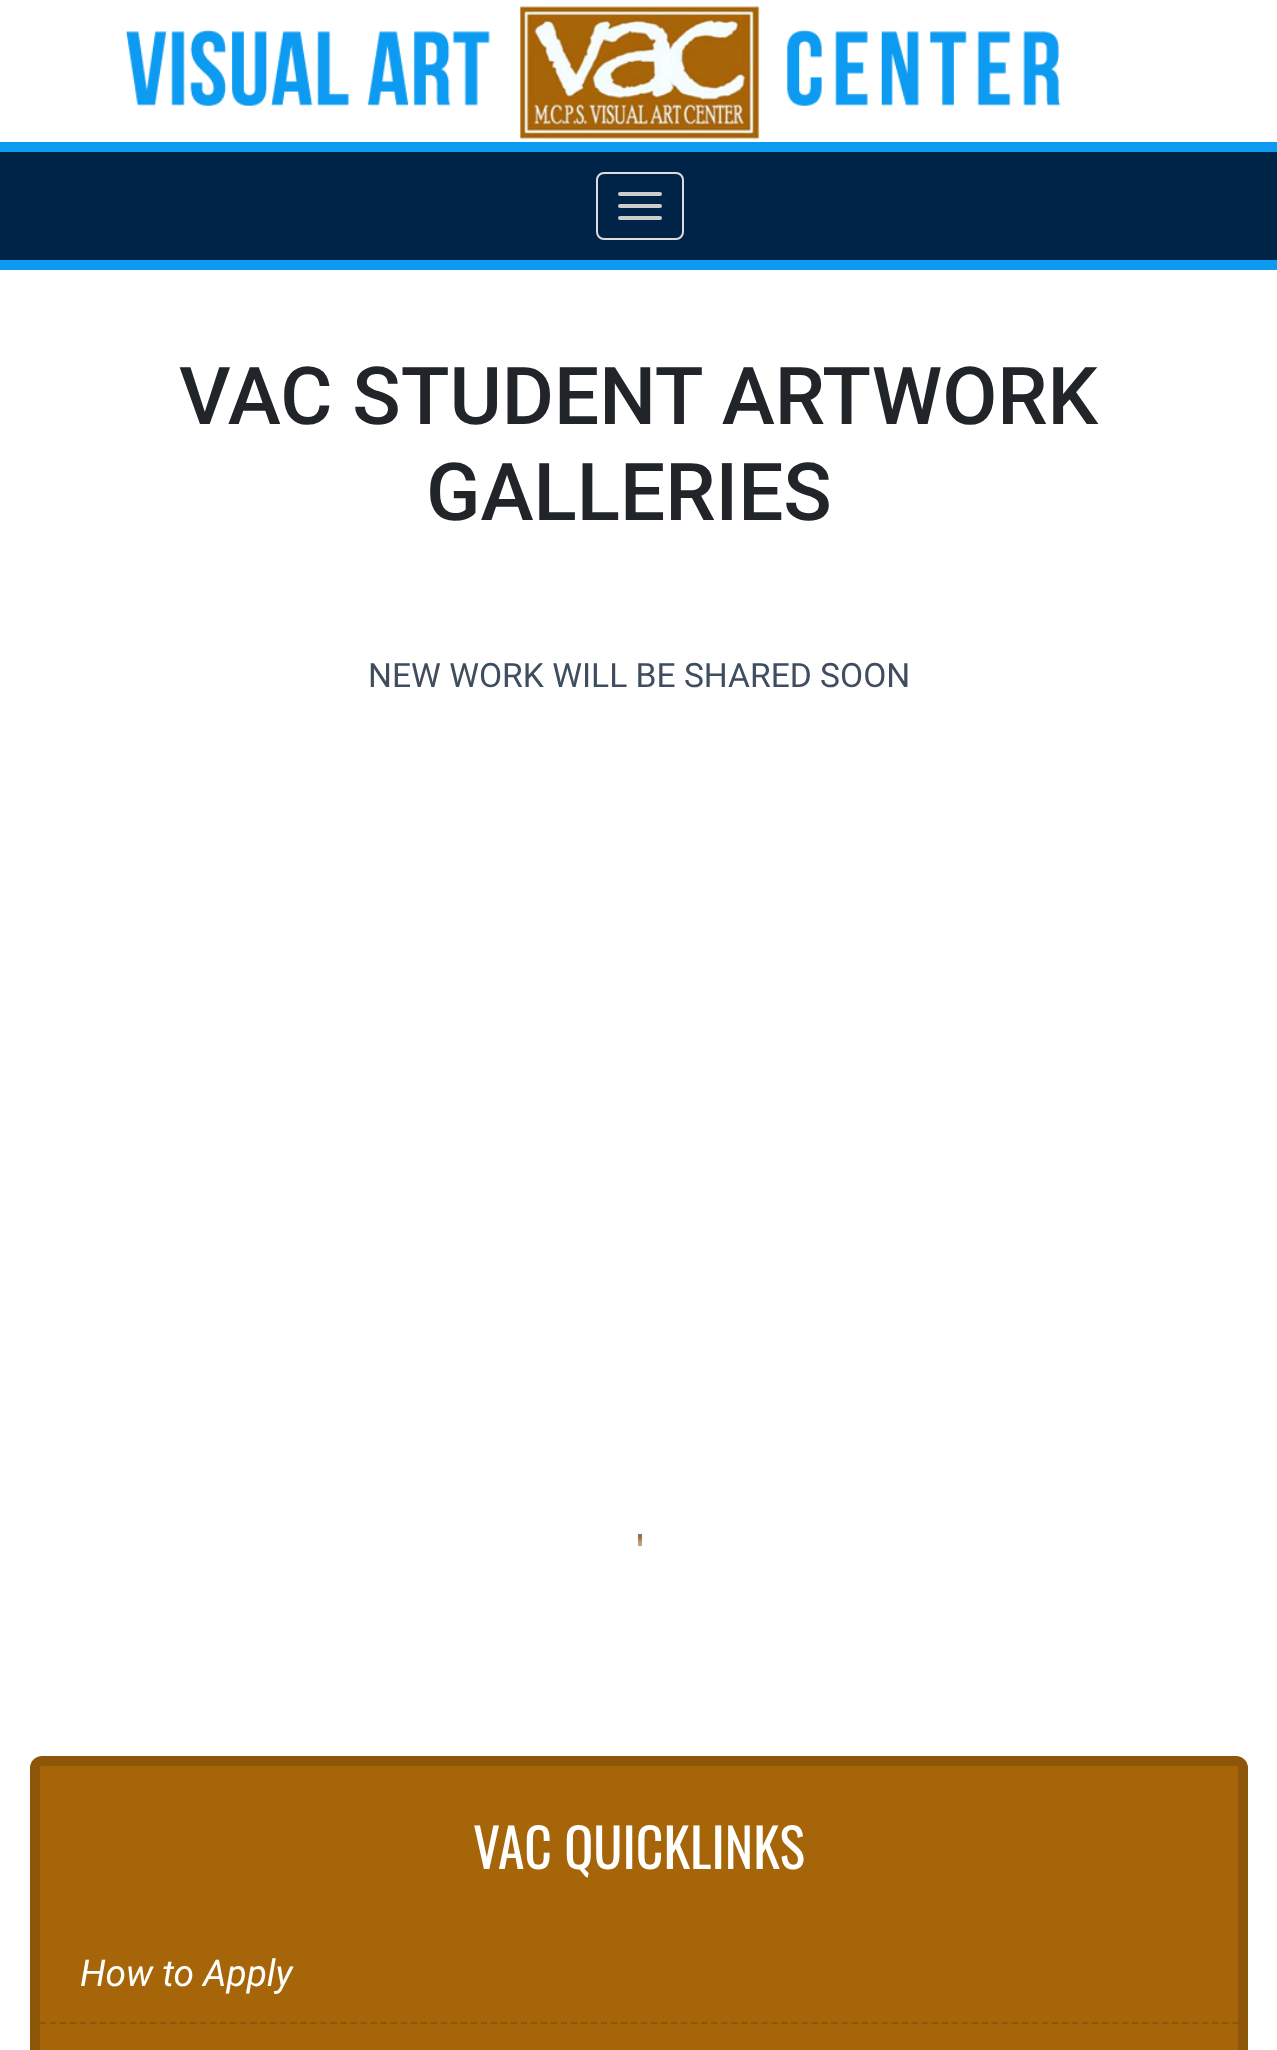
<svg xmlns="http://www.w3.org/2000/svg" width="1277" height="2050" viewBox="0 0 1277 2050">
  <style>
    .t1 { font: 500 80px Roboto; fill: #212529; }
    .t2 { font: 33.6px Roboto; fill: #3f4d5f; }
    .t3 { font: 53.75px Oswald; fill: #fff; }
    .t4 { font: italic 37px Roboto; fill: #fff; }
  </style>
  <rect width="100%" height="100%" fill="#fff"/>
  <image x="125" y="6" width="936" height="133" href="images/1.png"/>
  <rect x="0" y="152" width="1277" height="108" fill="#002447"/>
  <rect x="0" y="142" width="1277" height="10" fill="#0c9bf0"/>
  <rect x="0" y="260" width="1277" height="10" fill="#0c9bf0"/>
  <rect x="597" y="173" width="86" height="66" rx="7" fill="none" stroke="#ddd" stroke-width="2"/>
  <rect x="618" y="192" width="44" height="4" rx="2" fill="#ccc"/>
  <rect x="618" y="204" width="44" height="4" rx="2" fill="#ccc"/>
  <rect x="618" y="216" width="44" height="4" rx="2" fill="#ccc"/>
  <text x="179" y="424" class="t1">VAC STUDENT ARTWORK</text>
  <text x="426" y="520" class="t1">GALLERIES</text>
  <text x="368" y="687" class="t2">NEW WORK WILL BE SHARED SOON</text>
  <image x="638" y="1534" width="4" height="12" href="images/2.png"/>
  <rect x="35" y="1761" width="1208" height="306" rx="7" fill="#a66509" stroke="#8e5608" stroke-width="10"/>
  <text x="473" y="1869" class="t3">VAC QUICKLINKS</text>
  <path d="M40 2023H1238" fill="none" stroke="#8e5608" stroke-width="2" stroke-dasharray="6 4.02"/>
  <text x="80" y="1986" class="t4">How to Apply</text>
</svg>
